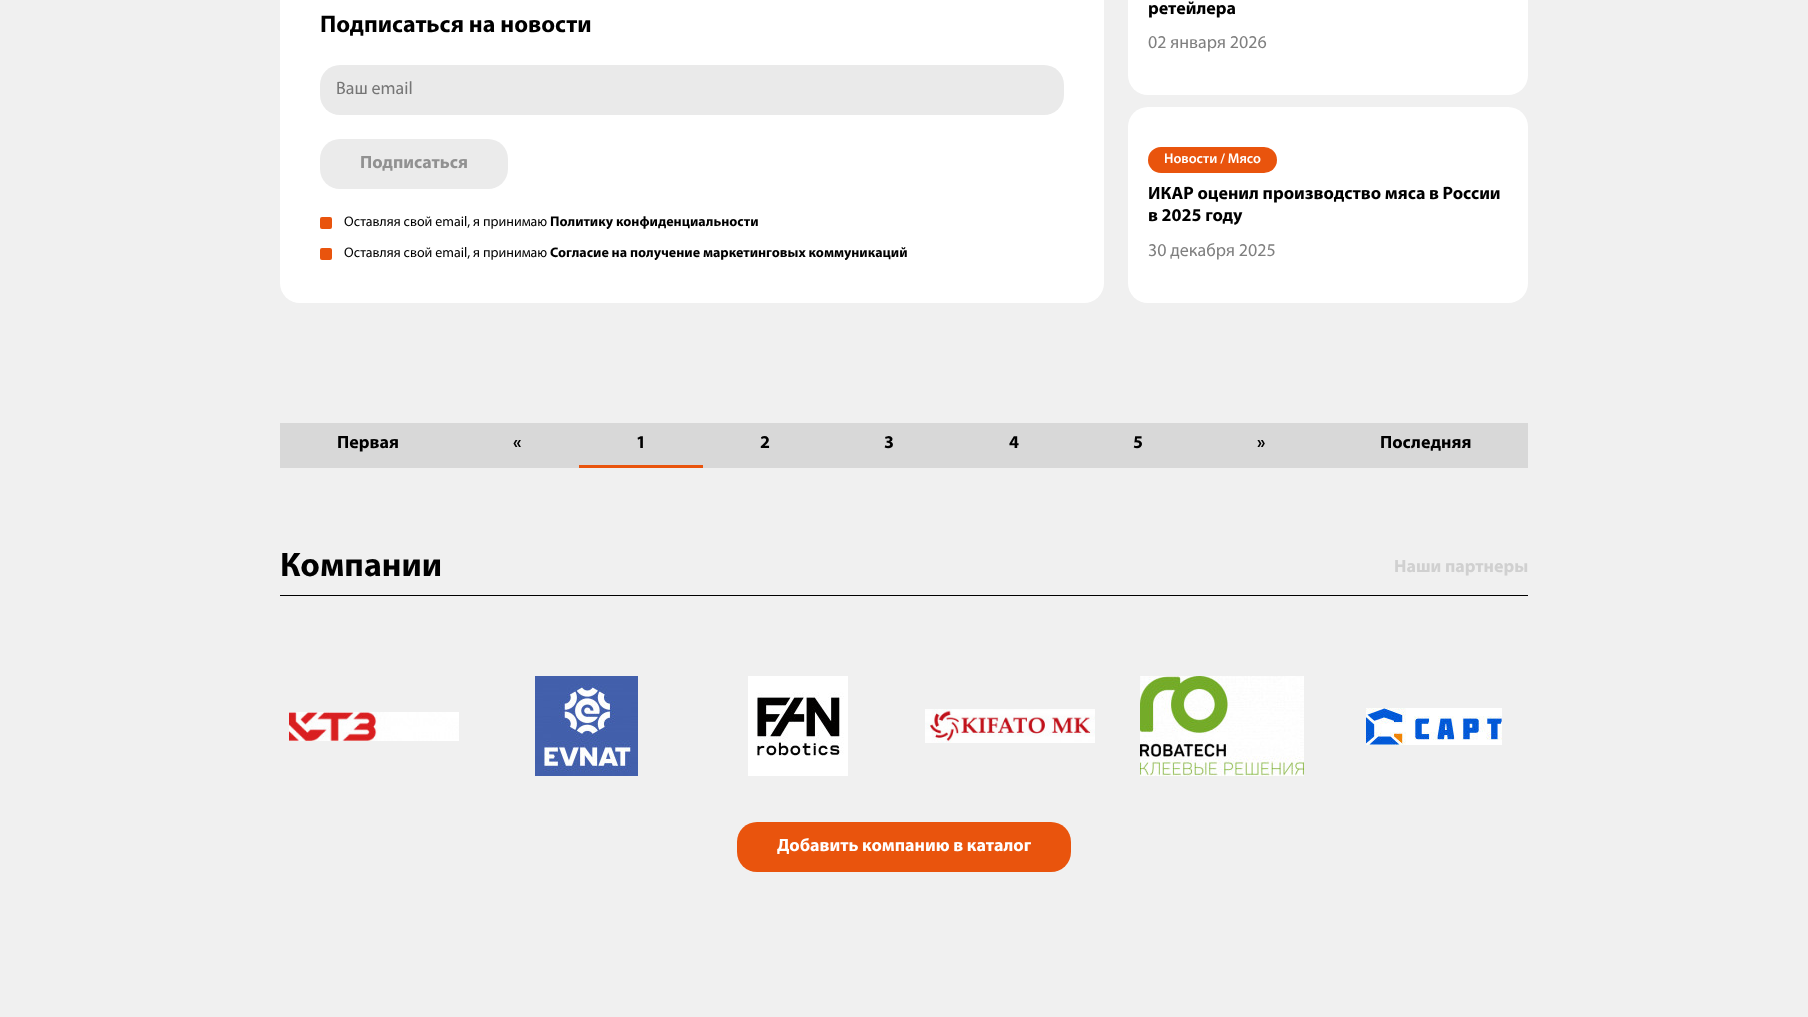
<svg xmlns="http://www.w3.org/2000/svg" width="1808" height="1017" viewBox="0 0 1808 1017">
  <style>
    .t1 { font: bold 24px Myriad; fill: #000; }
    .t2 { font: 18px Myriad; fill: #767676; }
    .t3 { font: bold 18px Myriad; fill: #919191; }
    .t4 { font: 14px Myriad; fill: #000; }
    .t5 { font: bold 14px Myriad; fill: #000; }
    .t6 { font: bold 18px Myriad; fill: #000; }
    .t7 { font: 18px Myriad; fill: #7f7f7f; }
    .t8 { font: 600 14px Myriad; fill: #fff; }
    .t9 { font: bold 34px Myriad; fill: #000; }
    .t10 { font: bold 18px Myriad; fill: #d0d0d0; }
    .t11 { font: bold 18px Myriad; fill: #fff; }
  </style>
  <rect width="100%" height="100%" fill="#f0f0f0"/>
  <rect x="280" y="-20" width="824" height="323" rx="20" fill="#fff"/>
  <text x="320" y="32" class="t1">Подписаться на новости</text>
  <rect x="320" y="65" width="744" height="50" rx="20" fill="#eaeaea"/>
  <text x="336" y="94" class="t2">Ваш email</text>
  <rect x="320" y="139" width="188" height="50" rx="20" fill="#ebebeb"/>
  <text x="360" y="168" class="t3">Подписаться</text>
  <rect x="320" y="217" width="12" height="12" rx="2" fill="#e9540d"/>
  <text x="344" y="226" class="t4">Оставляя свой email, я принимаю</text>
  <text x="550" y="226" class="t5">Политику конфиденциальности</text>
  <rect x="320" y="248" width="12" height="12" rx="2" fill="#e9540d"/>
  <text x="344" y="257" class="t4">Оставляя свой email, я принимаю</text>
  <text x="550" y="257" class="t5">Согласие на получение маркетинговых коммуникаций</text>
  <rect x="1128" y="-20" width="400" height="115" rx="20" fill="#fff"/>
  <text x="1148" y="14" class="t6">ретейлера</text>
  <text x="1148" y="48" class="t7">02 января 2026</text>
  <rect x="1128" y="107" width="400" height="196" rx="20" fill="#fff"/>
  <rect x="1148" y="147" width="129" height="26" rx="13" fill="#e9540d"/>
  <text x="1164" y="163" class="t8">Новости / Мясо</text>
  <text x="1148" y="199" class="t6">ИКАР оценил производство мяса в России</text>
  <text x="1148" y="221" class="t6">в 2025 году</text>
  <text x="1148" y="256" class="t7">30 декабря 2025</text>
  <rect x="280" y="423" width="1248" height="45" fill="#d8d8d8"/>
  <text x="337" y="448" class="t6">Первая</text>
  <text x="513" y="448" class="t6">«</text>
  <rect x="579" y="465" width="124" height="3" fill="#e9540d"/>
  <text x="636" y="448" class="t6">1</text>
  <text x="760" y="448" class="t6">2</text>
  <text x="884" y="448" class="t6">3</text>
  <text x="1009" y="448" class="t6">4</text>
  <text x="1133" y="448" class="t6">5</text>
  <text x="1257" y="448" class="t6">»</text>
  <text x="1380" y="448" class="t6">Последняя</text>
  <text x="280" y="576" class="t9">Компании</text>
  <text x="1394" y="572" class="t10">Наши партнеры</text>
  <rect x="280" y="595" width="1248" height="1" fill="#000"/>
  <image x="289" y="712" width="170" height="29" href="images/1.png"/>
  <image x="535" y="676" width="103" height="100" href="images/2.png"/>
  <image x="748" y="676" width="100" height="100" href="images/3.png"/>
  <image x="925" y="709" width="170" height="34" href="images/4.png"/>
  <image x="1140" y="676" width="164" height="100" href="images/5.png"/>
  <image x="1366" y="708" width="136" height="37" href="images/6.png"/>
  <rect x="737" y="822" width="334" height="50" rx="20" fill="#e9540d"/>
  <text x="777" y="851" class="t11">Добавить компанию в каталог</text>
</svg>
